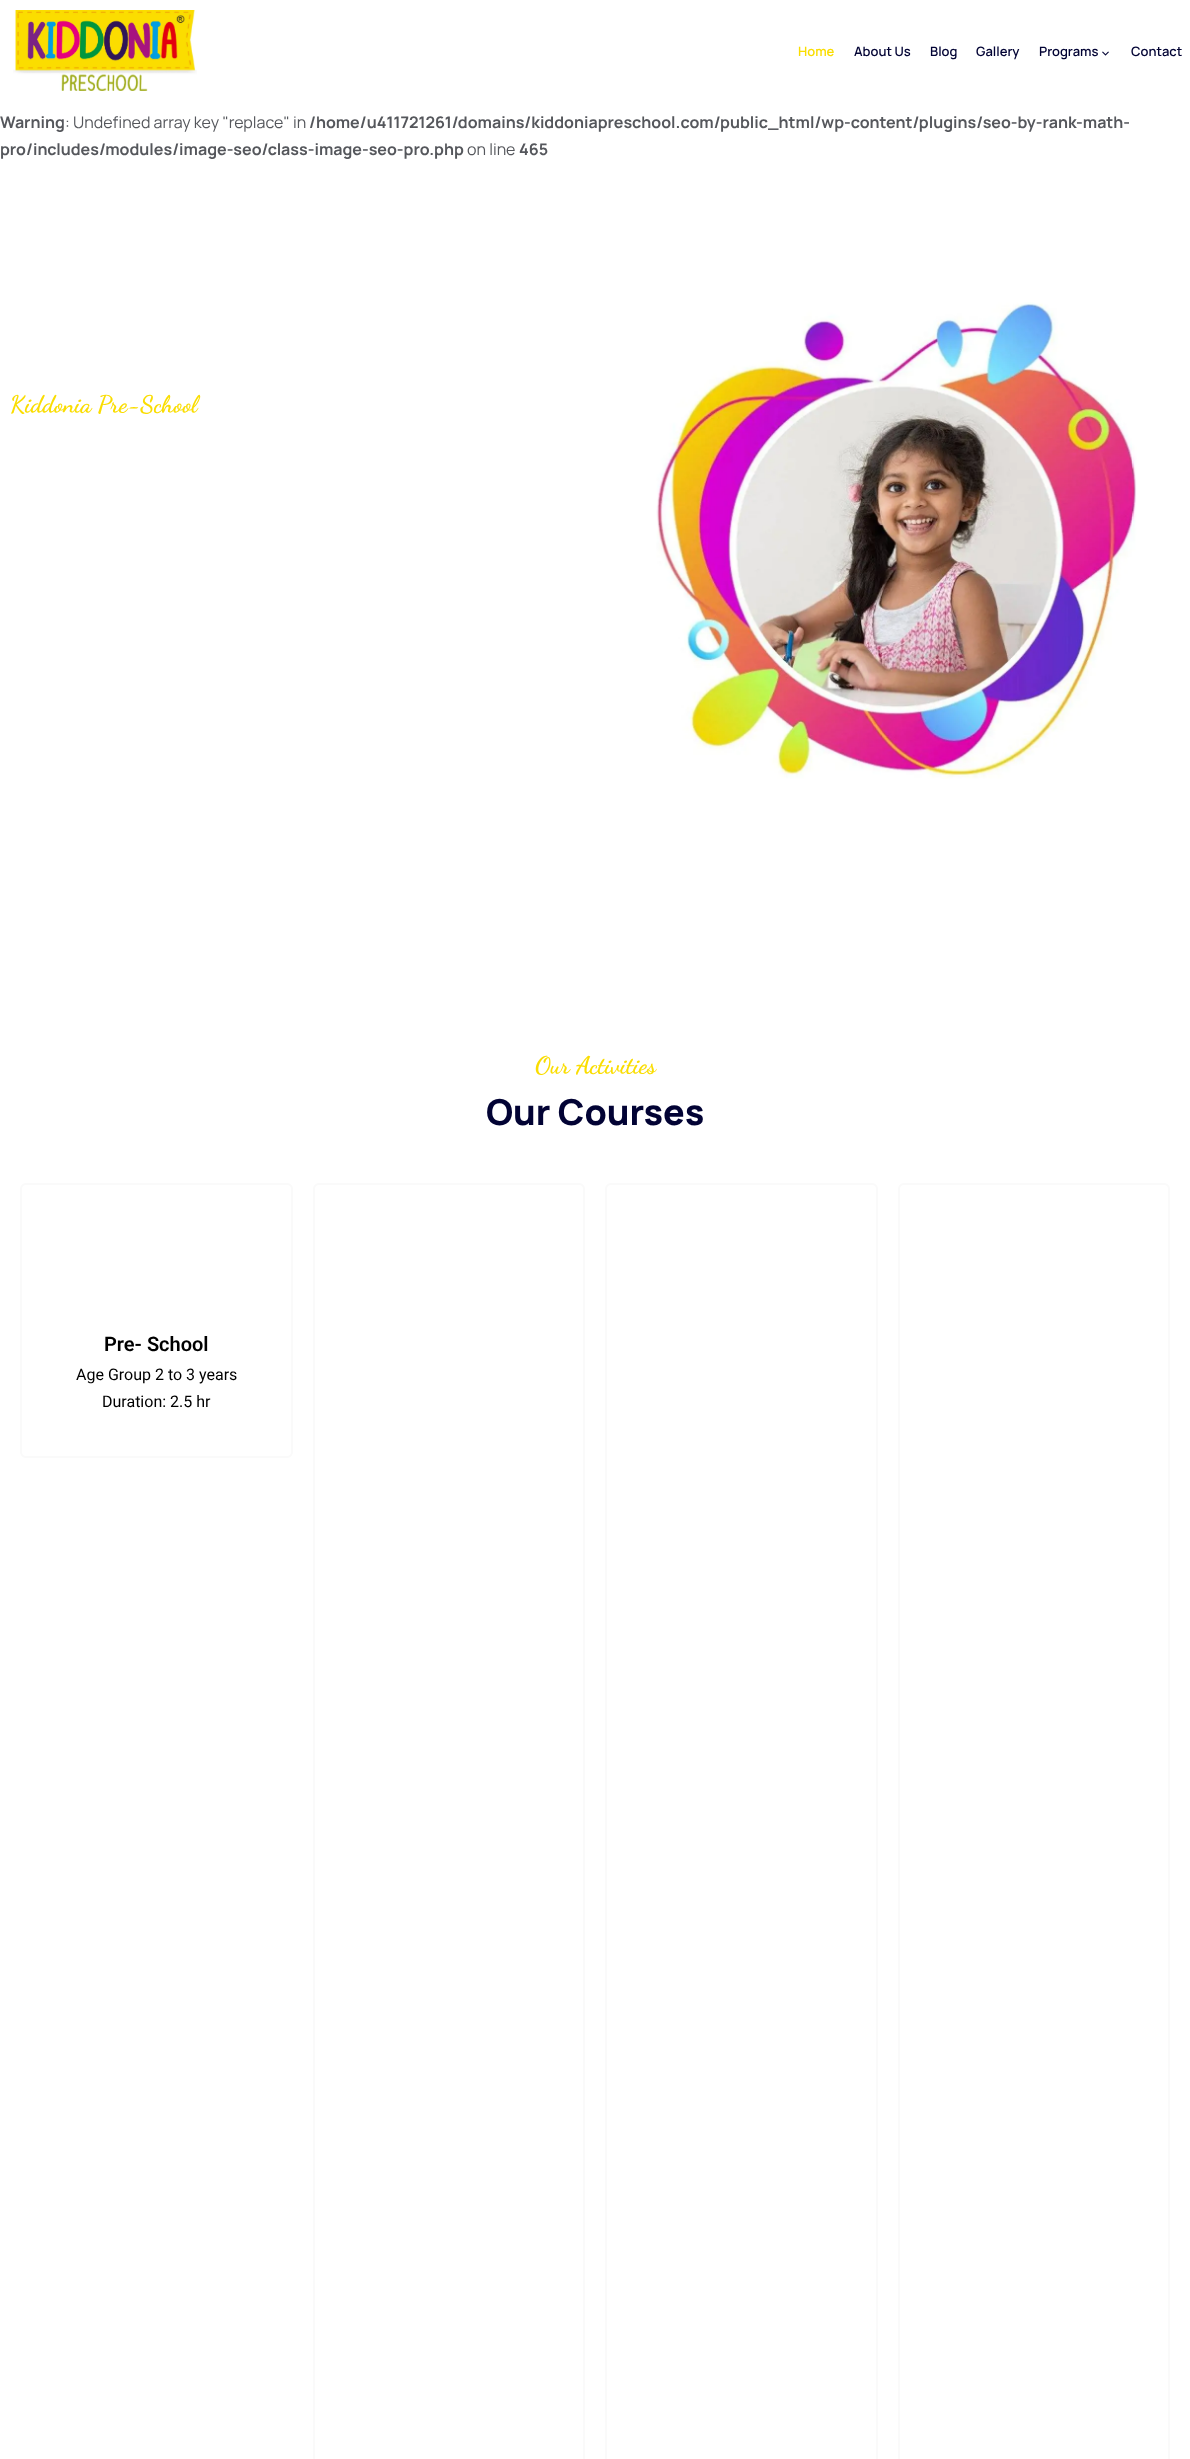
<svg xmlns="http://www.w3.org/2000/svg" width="1190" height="2459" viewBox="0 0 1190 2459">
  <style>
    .t1 { font: 600 13px Manrope; fill: #fadd00; }
    .t2 { font: 600 13px Manrope; fill: #020334; }
    .t3 { font: bold 16px Manrope; fill: #55575c; }
    .t4 { font: 16px Manrope; fill: #55575c; }
    .t5 { font: bold 24px Dancing Script; fill: #fadd00; }
    .t6 { font: 800 35.75px Manrope; fill: #020334; }
    .t7 { font: 600 20px Roboto; fill: #000; }
    .t8 { font: 16px Roboto; fill: #000; }
  </style>
  <rect width="100%" height="100%" fill="#fff"/>
  <image x="13" y="10" width="184" height="81" href="images/1.png"/>
  <text x="798" y="56" class="t1">Home</text>
  <text x="854" y="56" class="t2">About Us</text>
  <text x="930" y="56" class="t2">Blog</text>
  <text x="976" y="56" class="t2">Gallery</text>
  <text x="1039" y="56" class="t2">Programs</text>
  <image x="1102" y="51" width="7" height="5" href="images/2.png"/>
  <text x="1131" y="56" class="t2">Contact</text>
  <text x="0" y="128" class="t3">Warning</text>
  <text x="65" y="128" class="t4">: Undefined array key "replace" in</text>
  <text x="309" y="128" class="t3">/home/u411721261/domains/kiddoniapreschool.com/public_html/wp-content/plugins/seo-by-rank-math-</text>
  <text x="0" y="155" class="t3">pro/includes/modules/image-seo/class-image-seo-pro.php</text>
  <text x="467" y="155" class="t4">on line</text>
  <text x="519" y="155" class="t3">465</text>
  <text x="10" y="412" class="t5">Kiddonia Pre-School</text>
  <image x="656" y="302" width="481" height="477" href="images/3.png"/>
  <text x="535" y="1073" class="t5">Our Activities</text>
  <text x="486" y="1125" class="t6">Our Courses</text>
  <rect x="21" y="1184" width="271" height="273" rx="5" fill="none" stroke="#fafafa" stroke-width="2"/>
  <text x="104" y="1351" class="t7">Pre- School</text>
  <text x="76" y="1380" class="t8">Age Group 2 to 3 years</text>
  <text x="102" y="1407" class="t8">Duration: 2.5 hr</text>
  <rect x="314" y="1184" width="270" height="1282" rx="5" fill="none" stroke="#fafafa" stroke-width="2"/>
  <rect x="606" y="1184" width="271" height="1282" rx="5" fill="none" stroke="#fafafa" stroke-width="2"/>
  <rect x="899" y="1184" width="270" height="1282" rx="5" fill="none" stroke="#fafafa" stroke-width="2"/>
</svg>
